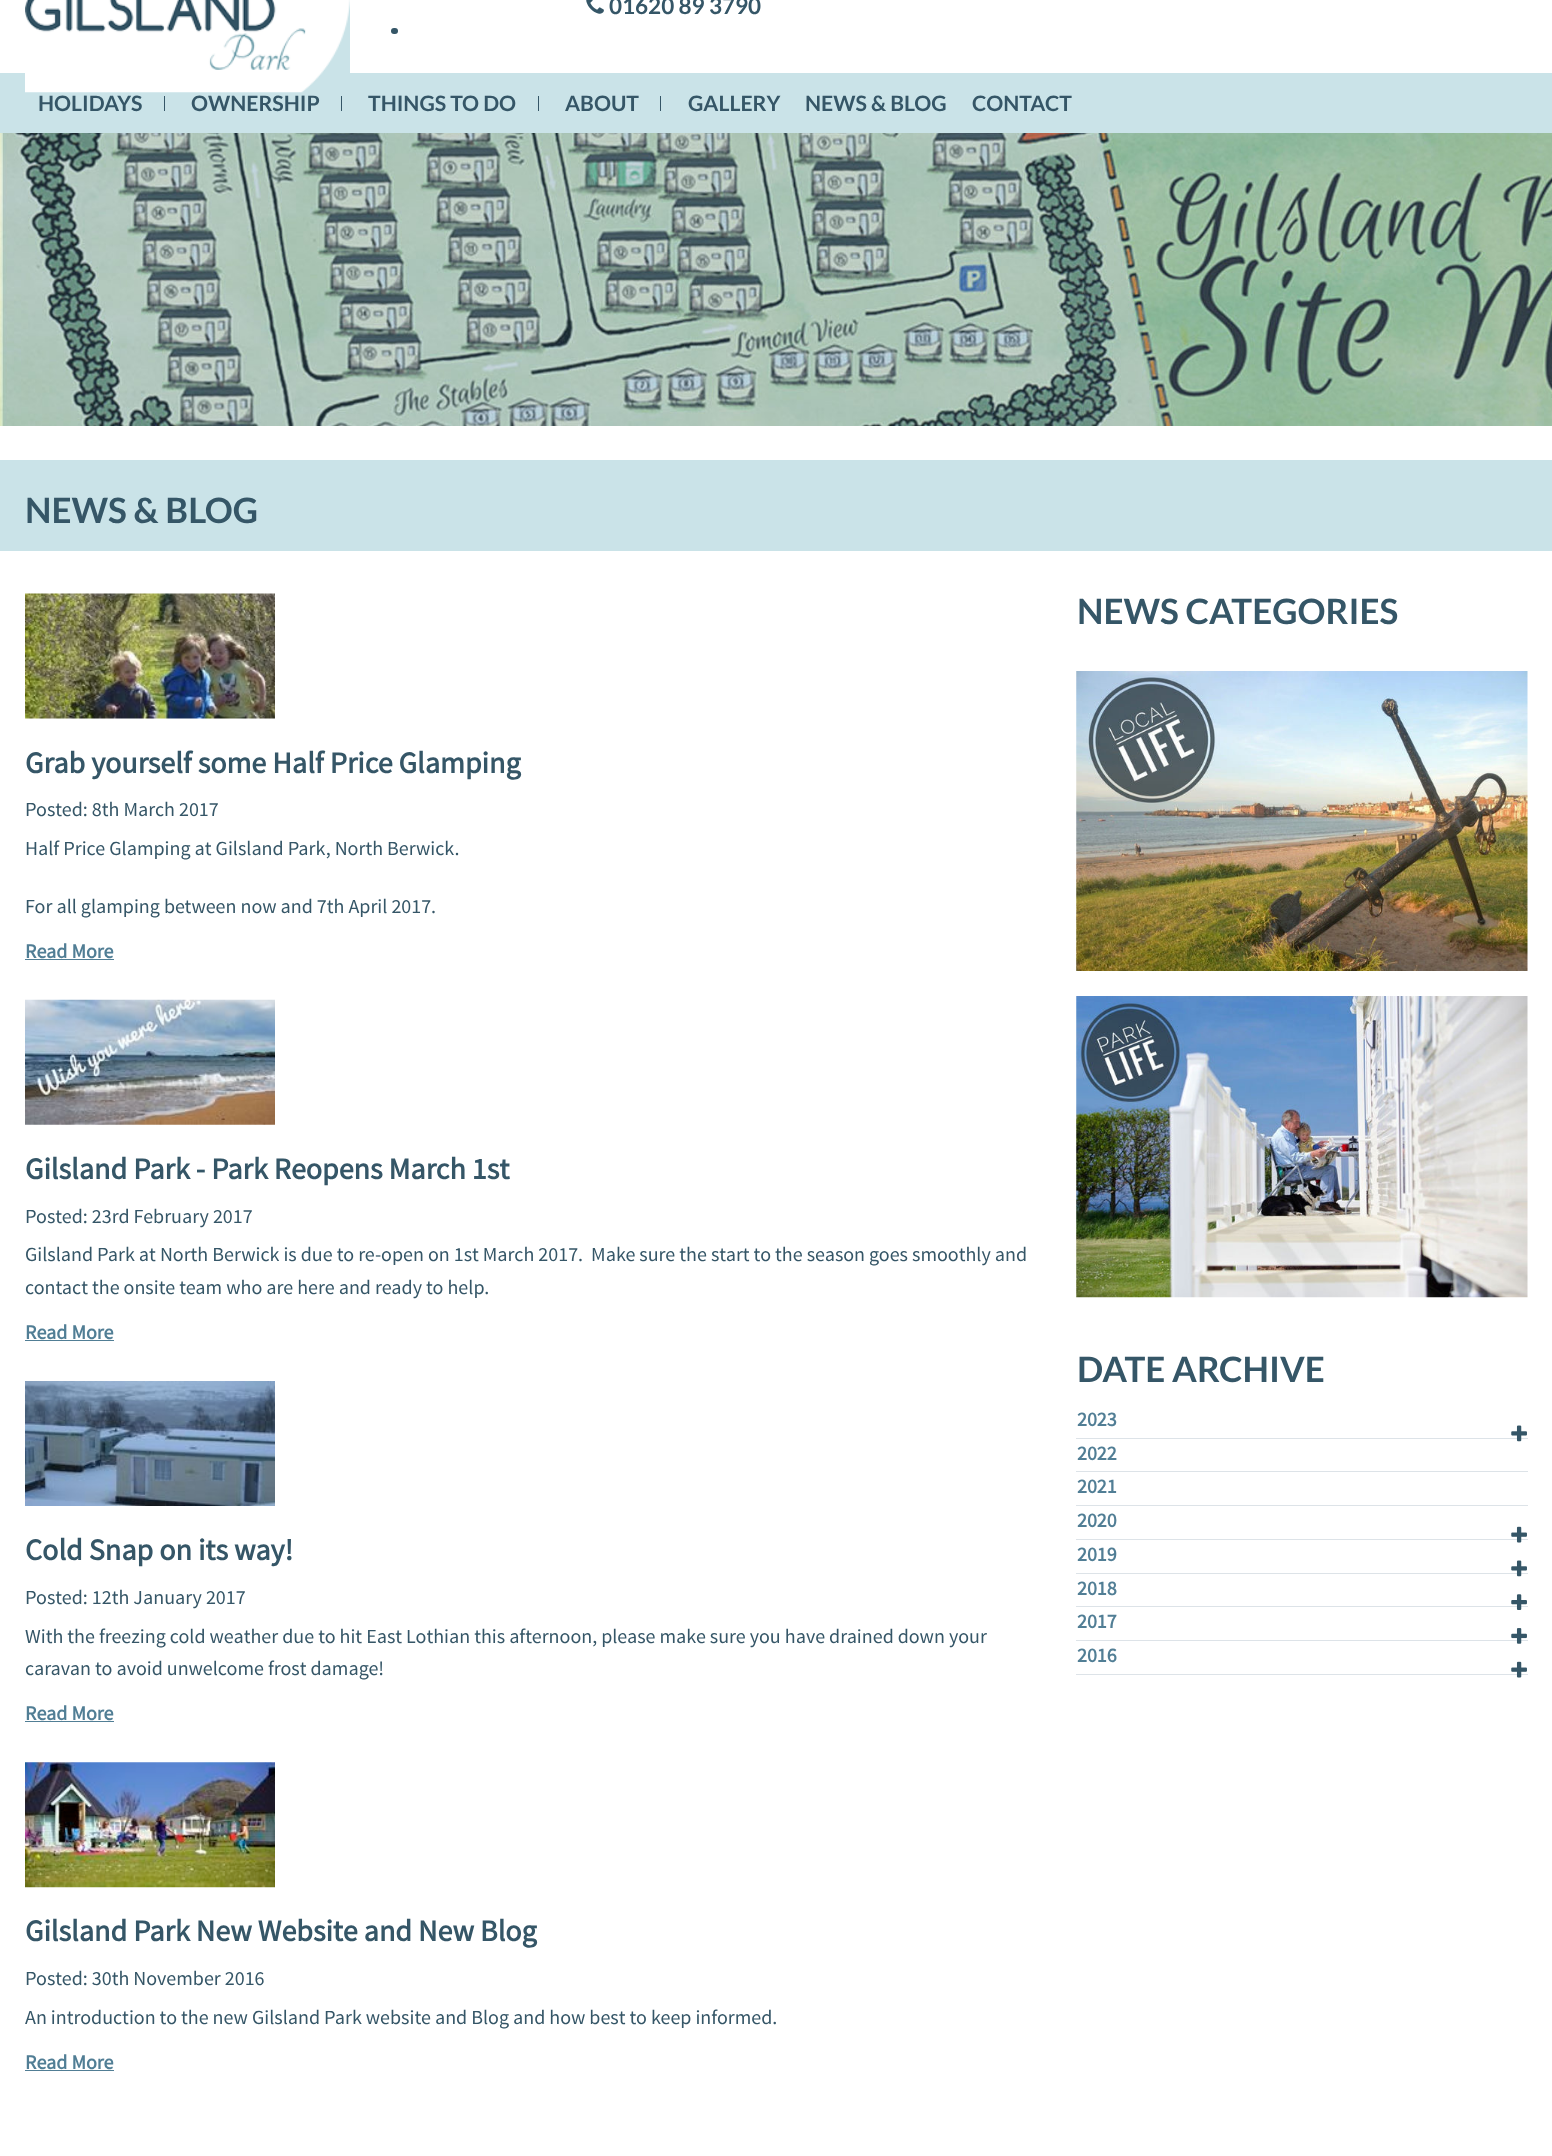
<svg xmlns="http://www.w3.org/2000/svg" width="1552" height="2156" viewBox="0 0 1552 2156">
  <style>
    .t1 { font: bold 22.5px Lato; fill: #355667; }
    .t2 { font: bold 21.25px Lato; fill: #355667; }
    .t3 { font: bold 35px Lato; fill: #355667; }
    .t4 { font: bold 30px Source Sans Pro; fill: #355667; }
    .t5 { font: 20px Source Sans Pro; fill: #355667; }
    .t6 { font: bold 20px Source Sans Pro; fill: #517e95; }
  </style>
  <rect width="100%" height="100%" fill="#fff"/>
  <image x="586" y="0" width="18" height="14" href="images/1.png"/>
  <text x="609" y="14" class="t1">01620 89 3790</text>
  <rect x="391" y="28" width="7" height="6" rx="3" fill="#355667"/>
  <rect x="0" y="73" width="1552" height="60" fill="#cae3e8"/>
  <image x="25" y="0" width="325" height="93" href="images/2.png"/>
  <text x="38" y="111" class="t2">HOLIDAYS</text>
  <rect x="164" y="96" width="1" height="15" fill="#355667"/>
  <text x="191" y="111" class="t2">OWNERSHIP</text>
  <rect x="341" y="96" width="1" height="15" fill="#355667"/>
  <text x="368" y="111" class="t2">THINGS TO DO</text>
  <rect x="538" y="96" width="1" height="15" fill="#355667"/>
  <text x="565" y="111" class="t2">ABOUT</text>
  <rect x="660" y="96" width="1" height="15" fill="#355667"/>
  <text x="688" y="111" class="t2">GALLERY</text>
  <text x="805" y="111" class="t2">NEWS &amp; BLOG</text>
  <text x="972" y="111" class="t2">CONTACT</text>
  <image x="0" y="133" width="1552" height="293" href="images/3.png"/>
  <rect x="0" y="460" width="1552" height="91" fill="#cae3e8"/>
  <text x="25" y="523" class="t3">NEWS &amp; BLOG</text>
  <image x="25" y="593" width="250" height="126" href="images/4.png"/>
  <text x="25" y="773" class="t4">Grab yourself some Half Price Glamping</text>
  <text x="25" y="816" class="t5">Posted: 8th March 2017</text>
  <text x="25" y="855" class="t5">Half Price Glamping at Gilsland Park, North Berwick.</text>
  <text x="25" y="913" class="t5">For all glamping between now and 7th April 2017.</text>
  <text x="25" y="958" class="t6">Read More</text>
  <rect x="25" y="959" width="89" height="1" fill="#517e95"/>
  <image x="25" y="999" width="250" height="126" href="images/5.png"/>
  <text x="25" y="1179" class="t4">Gilsland Park - Park Reopens March 1st</text>
  <text x="25" y="1223" class="t5">Posted: 23rd February 2017</text>
  <text x="25" y="1261" class="t5" xml:space="preserve">Gilsland Park at North Berwick is due to re-open on 1st March 2017.  Make sure the start to the season goes smoothly and</text>
  <text x="25" y="1294" class="t5">contact the onsite team who are here and ready to help.</text>
  <text x="25" y="1339" class="t6">Read More</text>
  <rect x="25" y="1340" width="89" height="1" fill="#517e95"/>
  <image x="25" y="1381" width="250" height="125" href="images/6.png"/>
  <text x="25" y="1560" class="t4">Cold Snap on its way!</text>
  <text x="25" y="1604" class="t5">Posted: 12th January 2017</text>
  <text x="25" y="1643" class="t5">With the freezing cold weather due to hit East Lothian this afternoon, please make sure you have drained down your</text>
  <text x="25" y="1675" class="t5">caravan to avoid unwelcome frost damage!</text>
  <text x="25" y="1720" class="t6">Read More</text>
  <rect x="25" y="1721" width="89" height="1" fill="#517e95"/>
  <image x="25" y="1762" width="250" height="126" href="images/7.png"/>
  <text x="25" y="1941" class="t4">Gilsland Park New Website and New Blog</text>
  <text x="25" y="1985" class="t5">Posted: 30th November 2016</text>
  <text x="25" y="2024" class="t5">An introduction to the new Gilsland Park website and Blog and how best to keep informed.</text>
  <text x="25" y="2069" class="t6">Read More</text>
  <rect x="25" y="2070" width="89" height="1" fill="#517e95"/>
  <text x="1077" y="624" class="t3">NEWS CATEGORIES</text>
  <image x="1076" y="671" width="452" height="300" href="images/8.png"/>
  <image x="1076" y="996" width="452" height="302" href="images/9.png"/>
  <text x="1077" y="1382" class="t3">DATE ARCHIVE</text>
  <rect x="1076" y="1438" width="452" height="1" fill="#dde3e8"/>
  <text x="1077" y="1426" class="t6">2023</text>
  <image x="1511" y="1425" width="16" height="17" href="images/10.png"/>
  <rect x="1076" y="1471" width="452" height="1" fill="#dde3e8"/>
  <text x="1077" y="1460" class="t6">2022</text>
  <rect x="1076" y="1505" width="452" height="1" fill="#dde3e8"/>
  <text x="1077" y="1493" class="t6">2021</text>
  <rect x="1076" y="1539" width="452" height="1" fill="#dde3e8"/>
  <text x="1077" y="1527" class="t6">2020</text>
  <image x="1511" y="1526" width="16" height="17" href="images/11.png"/>
  <rect x="1076" y="1573" width="452" height="1" fill="#dde3e8"/>
  <text x="1077" y="1561" class="t6">2019</text>
  <image x="1511" y="1560" width="16" height="17" href="images/10.png"/>
  <rect x="1076" y="1606" width="452" height="1" fill="#dde3e8"/>
  <text x="1077" y="1595" class="t6">2018</text>
  <image x="1511" y="1594" width="16" height="16" href="images/12.png"/>
  <rect x="1076" y="1640" width="452" height="1" fill="#dde3e8"/>
  <text x="1077" y="1628" class="t6">2017</text>
  <image x="1511" y="1628" width="16" height="16" href="images/13.png"/>
  <rect x="1076" y="1674" width="452" height="1" fill="#dde3e8"/>
  <text x="1077" y="1662" class="t6">2016</text>
  <image x="1511" y="1661" width="16" height="17" href="images/11.png"/>
</svg>
